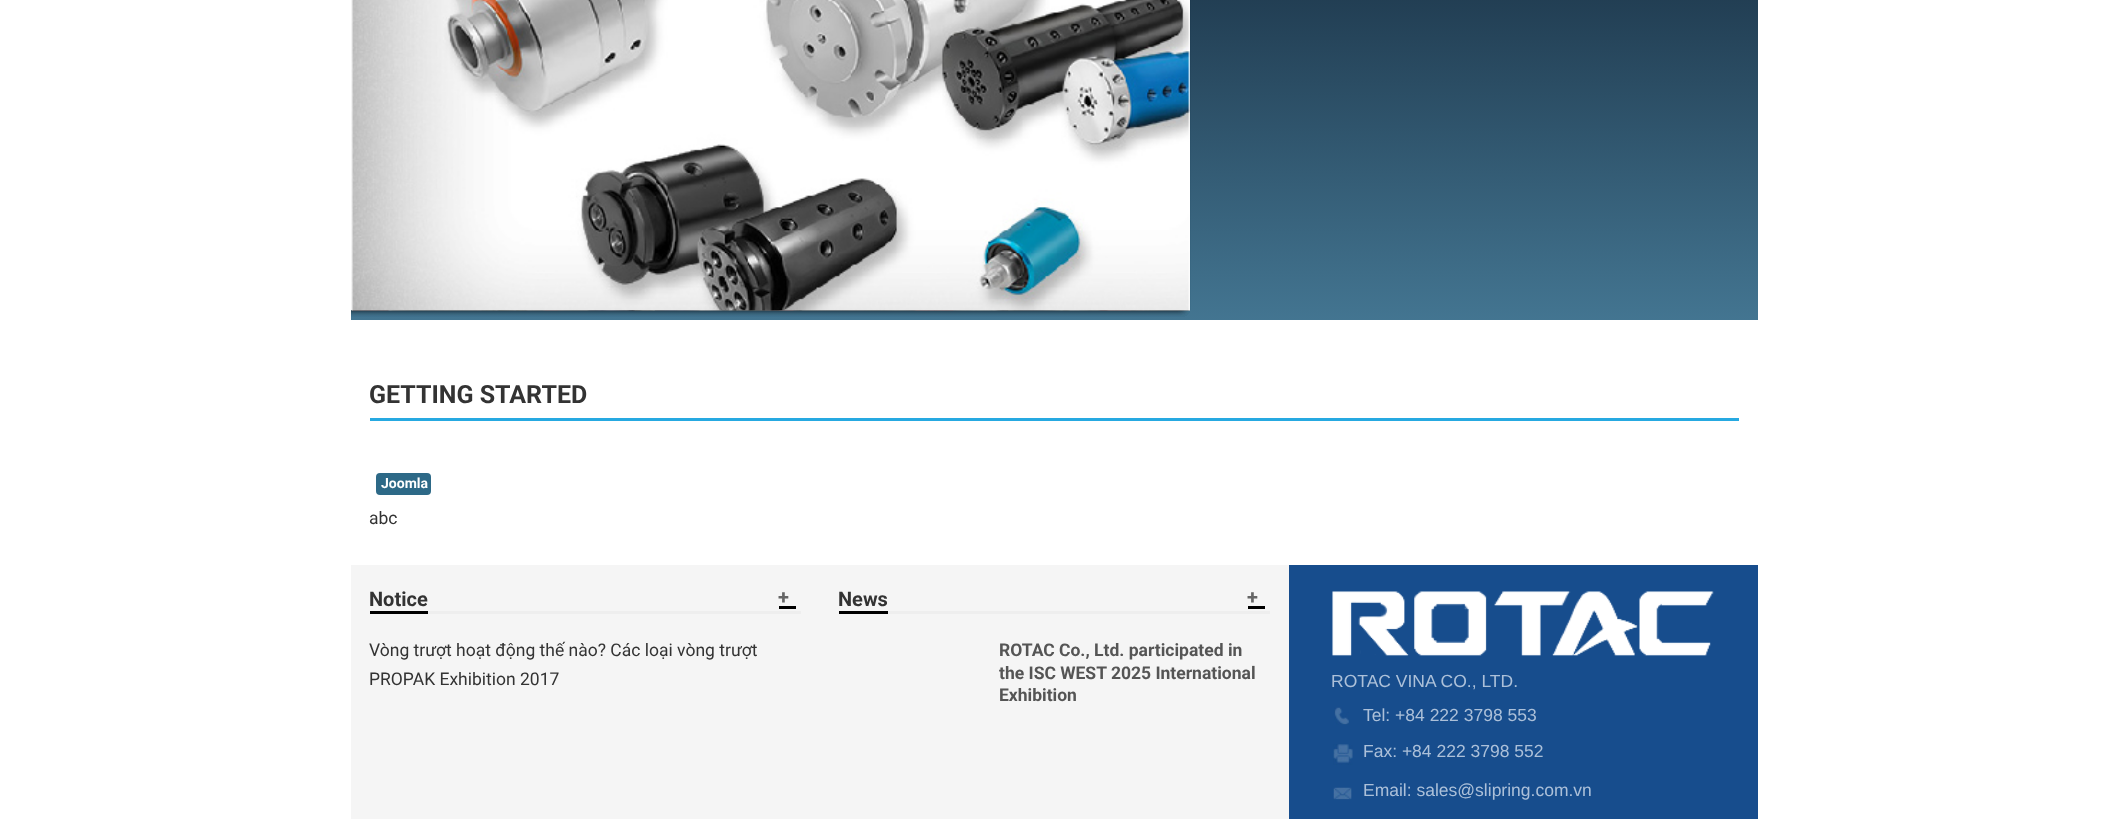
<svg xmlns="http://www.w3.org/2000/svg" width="2113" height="819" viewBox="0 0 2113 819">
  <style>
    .t1 { font: bold 25px Roboto; fill: #333; }
    .t2 { font: bold 14px Roboto; fill: #fff; }
    .t3 { font: 17.5px Roboto; fill: #333; }
    .t4 { font: bold 20px Roboto; fill: #333; }
    .t5 { font: bold 20px Roboto; fill: #666; }
    .t6 { font: bold 17.5px Roboto; fill: #555; }
    .t7 { font: 17.5px Liberation Sans; fill: #acc0d9; }
  </style>
  <defs>
    <linearGradient id="g1" gradientUnits="userSpaceOnUse" x1="1054" y1="-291" x2="1054" y2="320"><stop offset="0" stop-color="#040d1c"/><stop offset="1" stop-color="#437591"/></linearGradient>
    <clipPath id="clip1"><path d="M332 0H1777V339H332ZM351-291H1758V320H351Z" clip-rule="evenodd"/></clipPath>
    <clipPath id="clip2"><rect x="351" y="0" width="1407" height="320"/></clipPath>
  </defs>
  <rect width="100%" height="100%" fill="#fff"/>
  <rect x="351" y="0" width="1407" height="320" fill="url(#g1)"/>
  <g clip-path="url(#clip1)">
    <rect x="351" y="-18" width="1407" height="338" fill="#fff" filter="blur(6px)"/>
  </g>
  <g clip-path="url(#clip2)">
    <rect x="345" y="-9" width="839" height="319" fill="#0101014d" filter="blur(3px)"/>
  </g>
  <image x="351" y="310" width="839" height="1" href="images/1.png"/>
  <g clip-path="url(#clip2)">
    <rect x="345" y="-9" width="839" height="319" fill="#0101014d" filter="blur(3px)"/>
  </g>
  <image x="351" y="310" width="839" height="1" href="images/2.png"/>
  <g clip-path="url(#clip2)">
    <rect x="345" y="-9" width="839" height="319" fill="#0101014d" filter="blur(3px)"/>
  </g>
  <image x="351" y="310" width="839" height="1" href="images/3.png"/>
  <g clip-path="url(#clip2)">
    <rect x="345" y="-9" width="839" height="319" fill="#0101014d" filter="blur(3px)"/>
  </g>
  <rect x="351" y="0" width="1" height="310" fill="#fff"/>
  <image x="351" y="0" width="839" height="311" href="images/4.png"/>
  <rect x="370" y="418" width="1369" height="3" fill="#26a9e1"/>
  <text x="369" y="403" class="t1">GETTING STARTED</text>
  <rect x="376" y="473" width="55" height="22" rx="4" fill="#2d6987"/>
  <text x="381" y="488" class="t2">Joomla</text>
  <text x="369" y="524" class="t3">abc</text>
  <rect x="351" y="565" width="938" height="254" fill="#f5f5f5"/>
  <rect x="428" y="611" width="373" height="3" fill="#eee"/>
  <rect x="370" y="611" width="58" height="3" fill="#000"/>
  <rect x="779" y="606" width="17" height="3" fill="#000"/>
  <text x="369" y="606" class="t4">Notice</text>
  <text x="778" y="604" class="t5">+</text>
  <text x="369" y="656" class="t3">Vòng trượt hoạt động thế nào? Các loại vòng trượt</text>
  <text x="369" y="685" class="t3">PROPAK Exhibition 2017</text>
  <rect x="888" y="611" width="382" height="3" fill="#eee"/>
  <rect x="839" y="611" width="49" height="3" fill="#000"/>
  <rect x="1248" y="606" width="17" height="3" fill="#000"/>
  <text x="838" y="606" class="t4">News</text>
  <text x="1247" y="604" class="t5">+</text>
  <text x="999" y="656" class="t6">ROTAC Co., Ltd. participated in</text>
  <text x="999" y="679" class="t6">the ISC WEST 2025 International</text>
  <text x="999" y="701" class="t6">Exhibition</text>
  <rect x="1289" y="565" width="469" height="254" fill="#174d8d"/>
  <image x="1332" y="591" width="382" height="65" href="images/5.png"/>
  <text x="1331" y="687" class="t7">ROTAC VINA CO., LTD.</text>
  <image x="1334" y="707" width="15" height="18" href="images/6.png"/>
  <text x="1363" y="721" class="t7">Tel: +84 222 3798 553</text>
  <image x="1333" y="744" width="20" height="21" href="images/7.png"/>
  <text x="1363" y="757" class="t7">Fax: +84 222 3798 552</text>
  <image x="1333" y="787" width="19" height="13" href="images/8.png"/>
  <text x="1363" y="796" class="t7">Email: sales@slipring.com.vn</text>
</svg>
